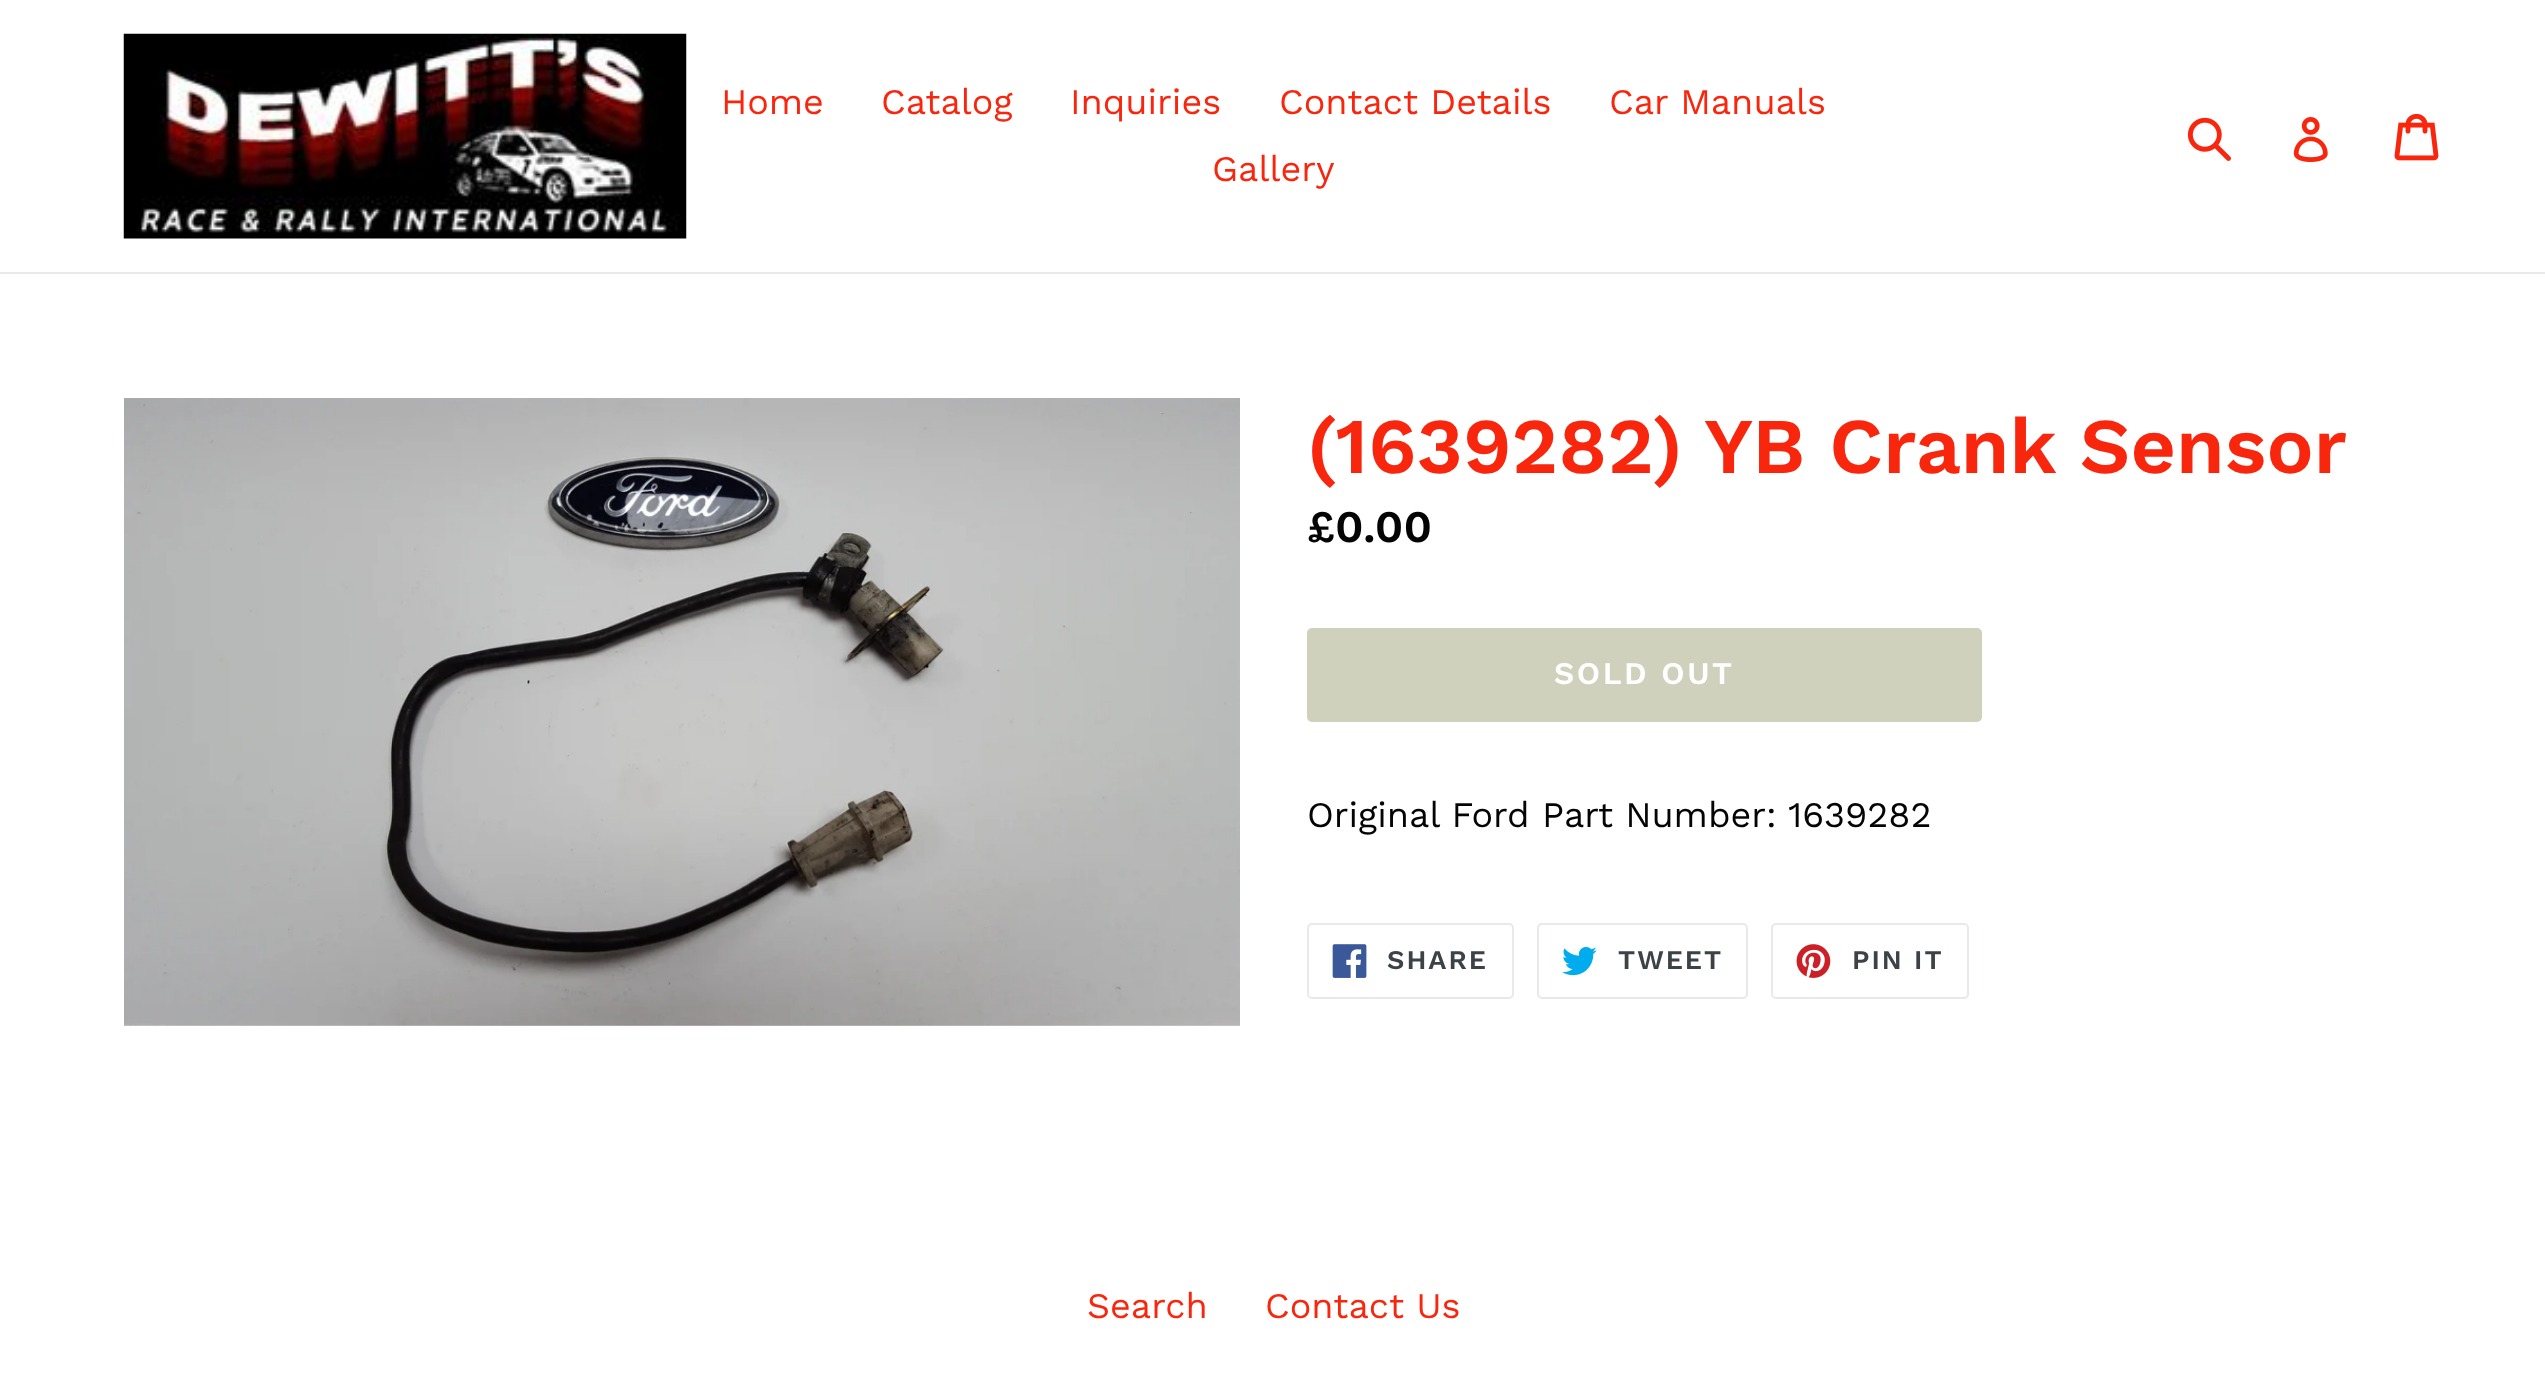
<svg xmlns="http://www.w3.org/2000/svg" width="2545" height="1379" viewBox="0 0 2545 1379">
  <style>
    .t1 { font: 36px Work Sans; fill: #f9260e; }
    .t2 { font: 600 78.75px Work Sans; fill: #f9260e; }
    .t3 { font: 600 45px Work Sans; fill: #040404; }
    .t4 { font: 600 31.5px Work Sans; letter-spacing: 2.5px; fill: #fff; }
    .t5 { font: 36px Work Sans; fill: #040404; }
    .t6 { font: 600 27px Work Sans; letter-spacing: 2px; fill: #3d4246; }
  </style>
  <rect width="100%" height="100%" fill="#fff"/>
  <rect x="0" y="272" width="2545" height="2" fill="#e8e9eb"/>
  <image x="123" y="33" width="564" height="206" href="images/1.png"/>
  <text x="721" y="114" class="t1">Home</text>
  <text x="881" y="114" class="t1">Catalog</text>
  <text x="1070" y="114" class="t1">Inquiries</text>
  <text x="1279" y="114" class="t1">Contact Details</text>
  <text x="1609" y="114" class="t1">Car Manuals</text>
  <text x="1212" y="181" class="t1">Gallery</text>
  <image x="2187" y="117" width="44" height="44" href="images/2.png"/>
  <image x="2293" y="117" width="35" height="45" href="images/3.png"/>
  <image x="2394" y="113" width="45" height="48" href="images/4.png"/>
  <image x="124" y="398" width="1116" height="628" href="images/5.png"/>
  <text x="1307" y="473" class="t2">(1639282) YB Crank Sensor</text>
  <text x="1307" y="542" class="t3">£0.00</text>
  <rect x="1307" y="628" width="675" height="94" rx="5" fill="#cfd1bd"/>
  <text x="1554" y="684" class="t4">SOLD OUT</text>
  <text x="1307" y="827" class="t5">Original Ford Part Number: 1639282</text>
  <rect x="1308" y="924" width="205" height="74" rx="4" fill="none" stroke="#e8e9eb" stroke-width="2"/>
  <image x="1332" y="944" width="35" height="34" href="images/6.png"/>
  <text x="1387" y="969" class="t6">SHARE</text>
  <rect x="1538" y="924" width="209" height="74" rx="4" fill="none" stroke="#e8e9eb" stroke-width="2"/>
  <image x="1562" y="947" width="35" height="29" href="images/7.png"/>
  <text x="1618" y="969" class="t6">TWEET</text>
  <rect x="1772" y="924" width="196" height="74" rx="4" fill="none" stroke="#e8e9eb" stroke-width="2"/>
  <image x="1796" y="944" width="35" height="34" href="images/8.png"/>
  <text x="1852" y="969" class="t6">PIN IT</text>
  <text x="1087" y="1318" class="t1">Search</text>
  <text x="1265" y="1318" class="t1">Contact Us</text>
</svg>
